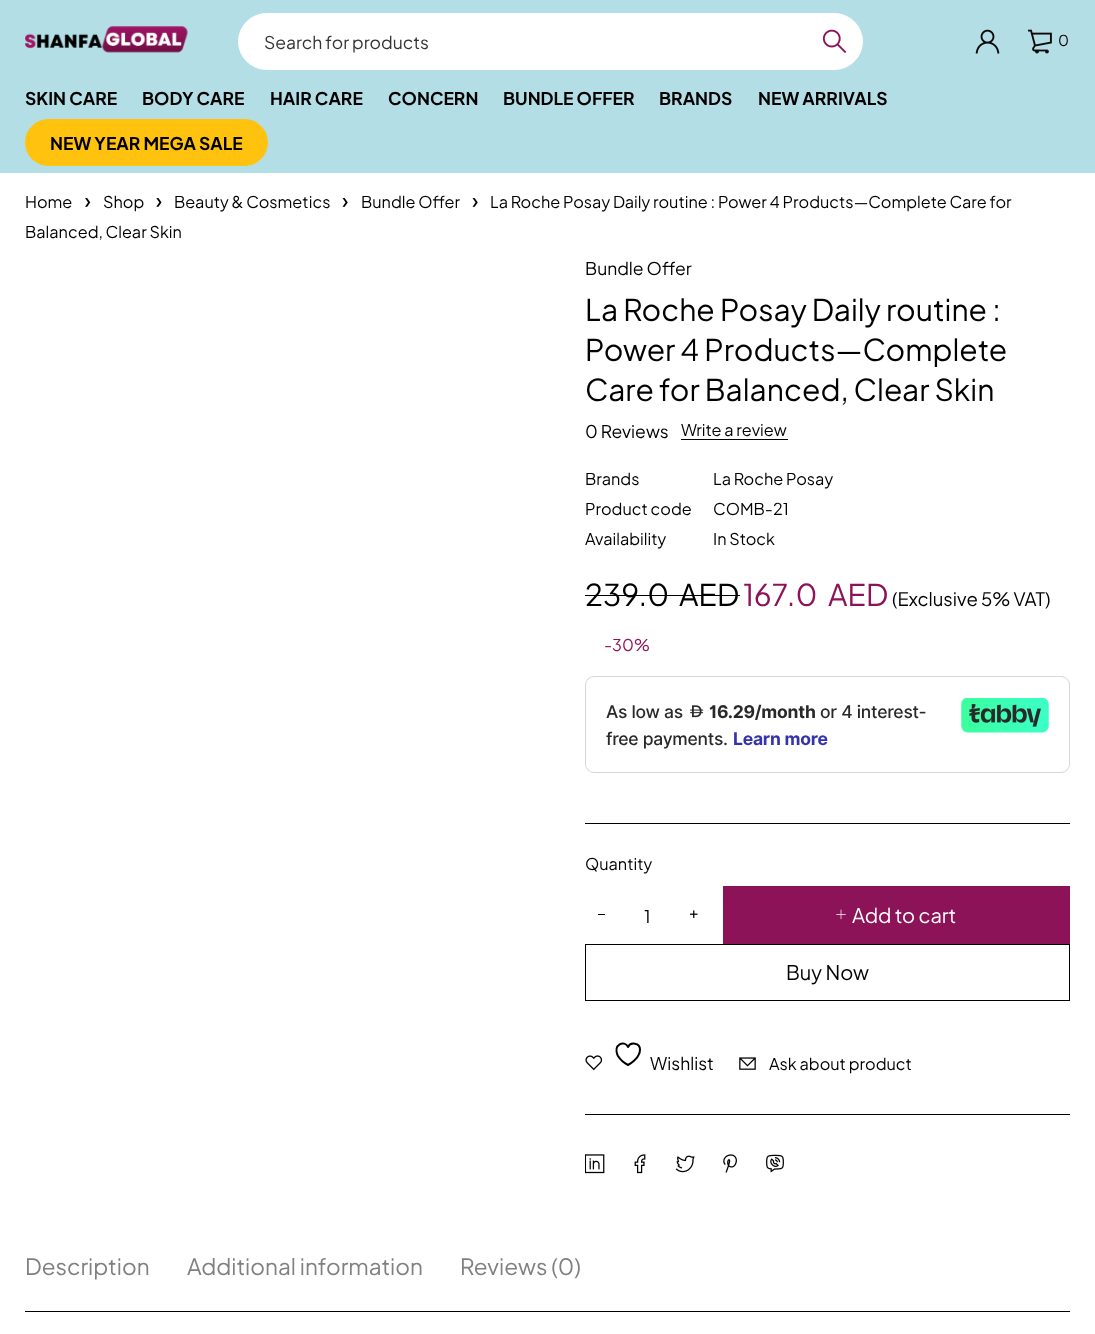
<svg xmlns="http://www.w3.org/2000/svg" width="1095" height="1334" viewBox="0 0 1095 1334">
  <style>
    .t1 { font: 17.5px Plus Jakarta Sans; fill: #333; }
    .t2 { font: 15px Plus Jakarta Sans; fill: #0b0a0a; }
    .t3 { font: bold 17.5px Plus Jakarta Sans; fill: #000; }
    .t4 { font: 16.25px Plus Jakarta Sans; fill: #000; }
    .t5 { font: 17.5px Plus Jakarta Sans; fill: #000; }
    .t6 { font: 30px Plus Jakarta Sans; fill: #000; }
    .t7 { font: 30px Plus Jakarta Sans; fill: #8d1358; }
    .t8 { font: 18.5px Plus Jakarta Sans; fill: #000; }
    .t9 { font: 16.25px Plus Jakarta Sans; fill: #8d1358; }
    .t10 { font: 500 17.5px Inter; letter-spacing: -0.25px; fill: #292929; }
    .t11 { font: bold 17.5px Inter; letter-spacing: -0.25px; fill: #292929; }
    .t12 { font: bold 17.5px Inter; letter-spacing: -0.25px; fill: #3533ac; }
    .t13 { font: 20px Plus Jakarta Sans; fill: #fff; }
    .t14 { font: 20px Plus Jakarta Sans; fill: #000; }
    .t15 { font: 22.5px Plus Jakarta Sans; fill: #808080; }
  </style>
  <rect width="100%" height="100%" fill="#fff"/>
  <rect x="0" y="0" width="1095" height="173" fill="#b3dee5"/>
  <image x="25" y="26" width="163" height="27" href="images/1.png"/>
  <rect x="238.5" y="13.5" width="624" height="56" rx="28" fill="#fff" stroke="#fff"/>
  <text x="264" y="49" class="t1">Search for products</text>
  <image x="822" y="29" width="25" height="24" href="images/2.png"/>
  <image x="975" y="29" width="25" height="25" href="images/3.png"/>
  <image x="1028" y="29" width="24" height="25" href="images/4.png"/>
  <text x="1058" y="46" class="t2">0</text>
  <text x="25" y="105" class="t3">SKIN CARE</text>
  <text x="142" y="105" class="t3">BODY CARE</text>
  <text x="270" y="105" class="t3">HAIR CARE</text>
  <text x="388" y="105" class="t3">CONCERN</text>
  <text x="503" y="105" class="t3">BUNDLE OFFER</text>
  <text x="659" y="105" class="t3">BRANDS</text>
  <text x="758" y="105" class="t3">NEW ARRIVALS</text>
  <rect x="25" y="119" width="243" height="47" rx="23.5" fill="#ffc20e"/>
  <text x="50" y="150" class="t3">NEW YEAR MEGA SALE</text>
  <text x="25" y="208" class="t4">Home</text>
  <image x="85" y="198" width="6" height="9" href="images/5.png"/>
  <text x="103" y="208" class="t4">Shop</text>
  <image x="156" y="198" width="6" height="9" href="images/6.png"/>
  <text x="174" y="208" class="t4">Beauty &amp; Cosmetics</text>
  <image x="342" y="198" width="6" height="9" href="images/7.png"/>
  <text x="361" y="208" class="t4">Bundle Offer</text>
  <image x="472" y="198" width="6" height="9" href="images/7.png"/>
  <text x="490" y="208" class="t4">La Roche Posay Daily routine : Power 4 Products—Complete Care for</text>
  <text x="25" y="238" class="t4">Balanced, Clear Skin</text>
  <text x="585" y="275" class="t5">Bundle Offer</text>
  <text x="585" y="321" class="t6">La Roche Posay Daily routine :</text>
  <text x="585" y="361" class="t6">Power 4 Products—Complete</text>
  <text x="585" y="401" class="t6">Care for Balanced, Clear Skin</text>
  <text x="585" y="438" class="t5">0 Reviews</text>
  <text x="681" y="436" class="t4">Write a review</text>
  <rect x="681" y="439" width="107" height="1" fill="#000"/>
  <text x="585" y="485" class="t4">Brands</text>
  <text x="713" y="485" class="t4">La Roche Posay</text>
  <text x="585" y="515" class="t4">Product code</text>
  <text x="713" y="515" class="t4">COMB-21</text>
  <text x="585" y="545" class="t4">Availability</text>
  <text x="713" y="545" class="t4">In Stock</text>
  <text x="585" y="606" class="t6">239.0</text>
  <rect x="585" y="595" width="89" height="1" fill="#000"/>
  <text x="679" y="606" class="t6">AED</text>
  <rect x="674" y="595" width="66" height="1" fill="#000"/>
  <text x="743" y="606" class="t7">167.0</text>
  <text x="828" y="606" class="t7">AED</text>
  <text x="892" y="606" class="t8">(Exclusive 5% VAT)</text>
  <text x="604" y="651" class="t9">-30%</text>
  <rect x="585.5" y="676.5" width="484" height="96" rx="8.5" fill="none" stroke="#d6d6d3"/>
  <text x="606" y="718" class="t10">As low as</text>
  <image x="690" y="705" width="14" height="13" href="images/8.png"/>
  <text x="709" y="718" class="t11">16.29/month</text>
  <text x="820" y="718" class="t10">or 4 interest-</text>
  <text x="606" y="745" class="t10">free payments.</text>
  <text x="733" y="745" class="t12">Learn more</text>
  <image x="961" y="698" width="88" height="35" href="images/9.png"/>
  <rect x="585" y="823" width="485" height="1" fill="#000"/>
  <text x="585" y="870" class="t4">Quantity</text>
  <rect x="598" y="914" width="7" height="1" fill="#000"/>
  <text x="644" y="923" class="t5">1</text>
  <image x="690" y="910" width="8" height="8" href="images/10.png"/>
  <rect x="723" y="886" width="347" height="58" fill="#8d1358"/>
  <image x="836" y="909" width="10" height="11" href="images/11.png"/>
  <text x="852" y="923" class="t13">Add to cart</text>
  <rect x="585.5" y="944.5" width="484" height="56" fill="none" stroke="#000"/>
  <text x="786" y="980" class="t14">Buy Now</text>
  <image x="585" y="1055" width="18" height="16" href="images/12.png"/>
  <path d="M640 1049.5C640 1043 630.5 1041.5 628 1047C625 1039.5 612 1044.5 618 1056C620.5 1060 624 1063 628 1065C628 1065 640 1059 640 1049.5Z" fill="none" stroke="#000" stroke-width="2" stroke-linecap="round" stroke-linejoin="round"/>
  <text x="650" y="1070" class="t5">Wishlist</text>
  <image x="739" y="1057" width="17" height="13" href="images/13.png"/>
  <text x="769" y="1070" class="t4">Ask about product</text>
  <rect x="585" y="1114" width="485" height="1" fill="#000"/>
  <image x="585" y="1154" width="20" height="20" href="images/14.png"/>
  <image x="634" y="1154" width="12" height="20" href="images/15.png"/>
  <image x="675" y="1155" width="20" height="18" href="images/16.png"/>
  <image x="723" y="1154" width="14" height="19" href="images/17.png"/>
  <image x="766" y="1154" width="18" height="19" href="images/18.png"/>
  <rect x="25" y="1311" width="1045" height="1" fill="#000"/>
  <text x="25" y="1275" class="t15">Description</text>
  <text x="187" y="1275" class="t15">Additional information</text>
  <text x="460" y="1275" class="t15">Reviews (0)</text>
</svg>
